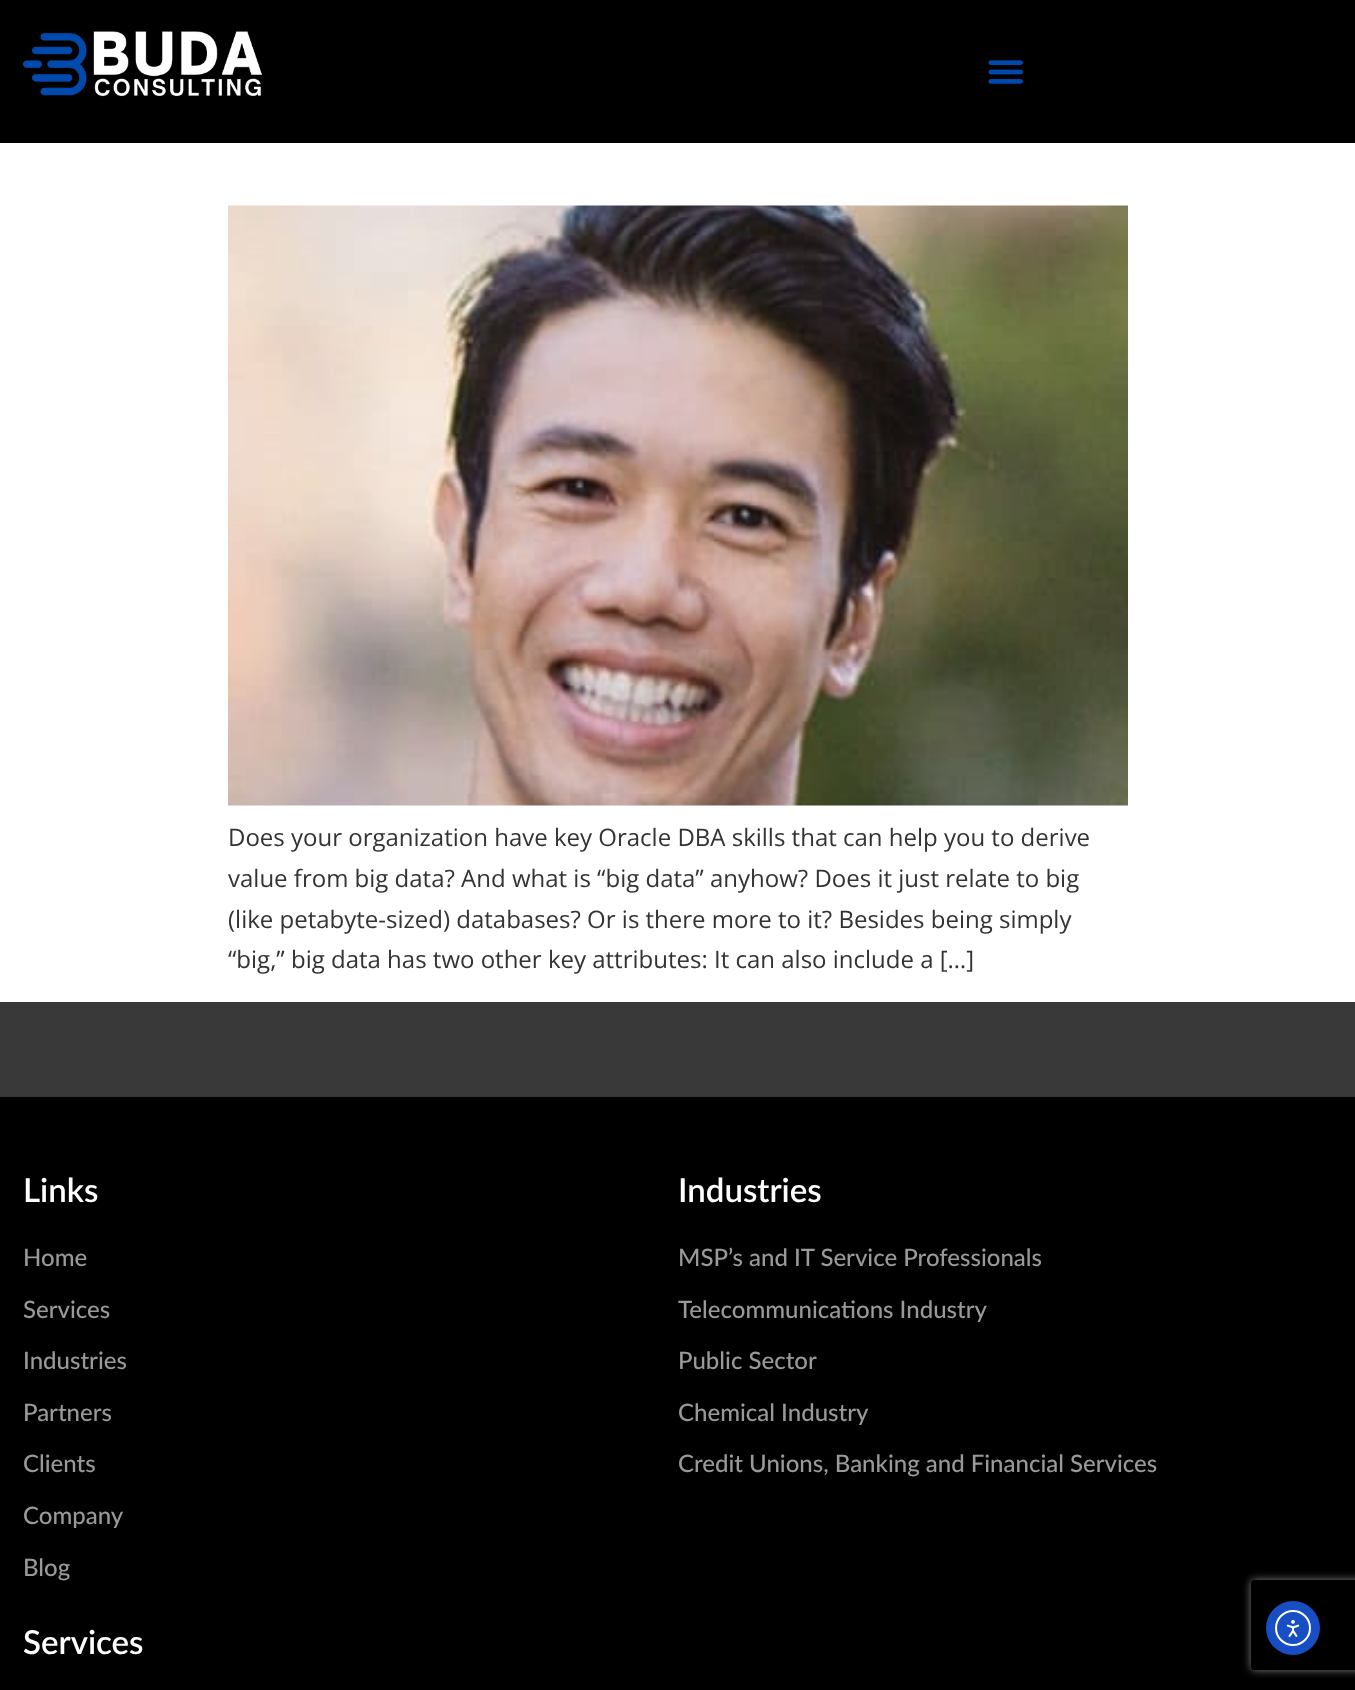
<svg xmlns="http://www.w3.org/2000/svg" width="1355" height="1690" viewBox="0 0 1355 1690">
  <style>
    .t1 { font: 24px Open Sans; fill: #333; }
    .t2 { font: 600 33px Lato; fill: #fff; }
    .t3 { font: 500 24px Lato; fill: #999; }
  </style>
  <defs>
    <clipPath id="clip1"><path d="M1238 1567H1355V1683H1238ZM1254 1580H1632C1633.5 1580 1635 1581.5 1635 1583V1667C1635 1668.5 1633.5 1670 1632 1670H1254C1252.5 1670 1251 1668.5 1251 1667V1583C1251 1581.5 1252.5 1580 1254 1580Z" clip-rule="evenodd"/></clipPath>
  </defs>
  <rect width="100%" height="100%" fill="#fff"/>
  <rect x="0" y="0" width="1355" height="143" fill="#000"/>
  <image x="22" y="31" width="241" height="66" href="images/1.png"/>
  <image x="988" y="60" width="35" height="24" href="images/2.png"/>
  <image x="228" y="205" width="900" height="601" href="images/3.png"/>
  <text x="228" y="846" class="t1">Does your organization have key Oracle DBA skills that can help you to derive</text>
  <text x="228" y="887" class="t1">value from big data? And what is “big data” anyhow? Does it just relate to big</text>
  <text x="228" y="928" class="t1">(like petabyte-sized) databases? Or is there more to it? Besides being simply</text>
  <text x="228" y="968" class="t1">“big,” big data has two other key attributes: It can also include a […]</text>
  <rect x="0" y="1002" width="1355" height="95" fill="#393939"/>
  <rect x="0" y="1097" width="1355" height="593" fill="#000"/>
  <text x="23" y="1202" class="t2">Links</text>
  <text x="23" y="1266" class="t3">Home</text>
  <text x="23" y="1318" class="t3">Services</text>
  <text x="23" y="1369" class="t3">Industries</text>
  <text x="23" y="1421" class="t3">Partners</text>
  <text x="23" y="1472" class="t3">Clients</text>
  <text x="23" y="1524" class="t3">Company</text>
  <text x="23" y="1576" class="t3">Blog</text>
  <text x="678" y="1202" class="t2">Industries</text>
  <text x="678" y="1266" class="t3">MSP’s and IT Service Professionals</text>
  <text x="678" y="1318" class="t3">Telecommunications Industry</text>
  <text x="678" y="1369" class="t3">Public Sector</text>
  <text x="678" y="1421" class="t3">Chemical Industry</text>
  <text x="678" y="1472" class="t3">Credit Unions, Banking and Financial Services</text>
  <text x="23" y="1654" class="t2">Services</text>
  <g clip-path="url(#clip1)">
    <rect x="1251" y="1580" width="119" height="90" rx="3" fill="#808080" filter="blur(4px)"/>
  </g>
  <circle cx="1293" cy="1628" r="27" fill="#184ec3"/>
  <circle cx="1293" cy="1628" r="17" fill="none" stroke="#fff" stroke-width="2"/>
  <image x="1286" y="1620" width="14" height="17" href="images/4.png"/>
</svg>
